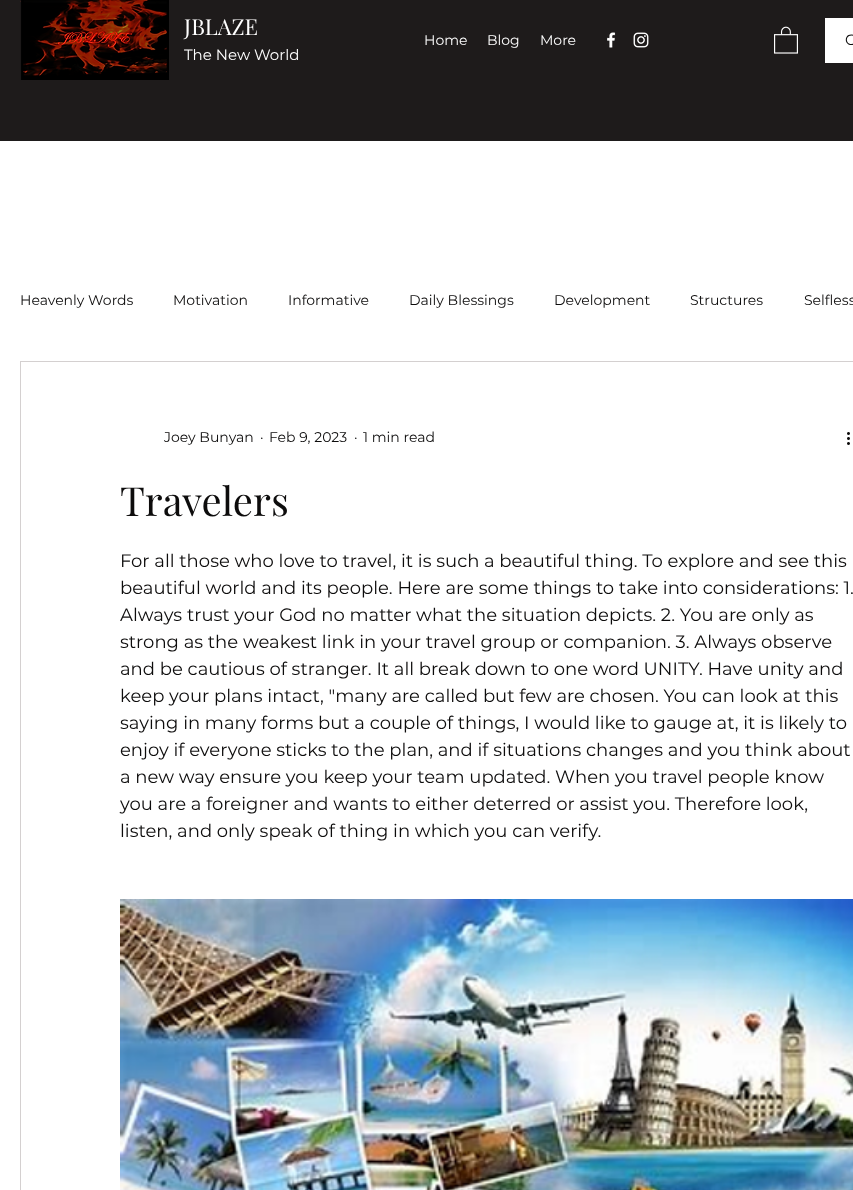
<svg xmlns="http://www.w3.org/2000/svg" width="853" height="1190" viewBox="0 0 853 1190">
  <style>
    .t1 { font: 22px Playfair Display; fill: #fff; }
    .t2 { font: 15px Montserrat; fill: #fff; }
    .t3 { font: 14px Montserrat; fill: #fff; }
    .t4 { font: 15px Montserrat; fill: #0d0c0c; }
    .t5 { font: 14px Montserrat; fill: #0d0c0c; }
    .t6 { font: 40px Playfair Display; fill: #0d0c0c; }
    .t7 { font: 18px Montserrat; fill: #0d0c0c; }
  </style>
  <rect width="100%" height="100%" fill="#fff"/>
  <rect x="0" y="0" width="853" height="141" fill="#1e1b1b"/>
  <image x="20" y="0" width="149" height="80" href="images/1.png"/>
  <text x="184" y="35" class="t1">JBLAZE</text>
  <text x="184" y="60" class="t2">The New World</text>
  <text x="424" y="45" class="t3">Home</text>
  <text x="487" y="45" class="t3">Blog</text>
  <text x="540" y="45" class="t3">More</text>
  <image x="607" y="32" width="9" height="16" href="images/2.png"/>
  <image x="633" y="32" width="16" height="16" href="images/3.png"/>
  <image x="774" y="26" width="24" height="28" href="images/4.png"/>
  <rect x="825" y="18" width="28" height="45" fill="#fff"/>
  <text x="845" y="45" class="t4">G</text>
  <text x="20" y="305" class="t5">Heavenly Words</text>
  <text x="173" y="305" class="t5">Motivation</text>
  <text x="288" y="305" class="t5">Informative</text>
  <text x="409" y="305" class="t5">Daily Blessings</text>
  <text x="554" y="305" class="t5">Development</text>
  <text x="690" y="305" class="t5">Structures</text>
  <text x="804" y="305" class="t5">Selfless</text>
  <rect x="20.5" y="361.5" width="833" height="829" fill="none" stroke="#d4d0d0"/>
  <text x="164" y="442" class="t5">Joey Bunyan</text>
  <text x="260" y="442" class="t5">·</text>
  <text x="269" y="442" class="t5">Feb 9, 2023</text>
  <text x="354" y="442" class="t5">·</text>
  <text x="363" y="442" class="t5">1 min read</text>
  <image x="847" y="432" width="3" height="13" href="images/5.png"/>
  <text x="120" y="516" class="t6">Travelers</text>
  <text x="120" y="567" class="t7">For all those who love to travel, it is such a beautiful thing. To explore and see this</text>
  <text x="120" y="594" class="t7">beautiful world and its people. Here are some things to take into considerations: 1.</text>
  <text x="120" y="621" class="t7">Always trust your God no matter what the situation depicts. 2. You are only as</text>
  <text x="120" y="648" class="t7">strong as the weakest link in your travel group or companion. 3. Always observe</text>
  <text x="120" y="675" class="t7">and be cautious of stranger. It all break down to one word UNITY. Have unity and</text>
  <text x="120" y="702" class="t7">keep your plans intact, "many are called but few are chosen. You can look at this</text>
  <text x="120" y="729" class="t7">saying in many forms but a couple of things, I would like to gauge at, it is likely to</text>
  <text x="120" y="756" class="t7">enjoy if everyone sticks to the plan, and if situations changes and you think about</text>
  <text x="120" y="783" class="t7">a new way ensure you keep your team updated. When you travel people know</text>
  <text x="120" y="810" class="t7">you are a foreigner and wants to either deterred or assist you. Therefore look,</text>
  <text x="120" y="837" class="t7">listen, and only speak of thing in which you can verify.</text>
  <image x="120" y="899" width="733" height="291" href="images/6.png"/>
</svg>
